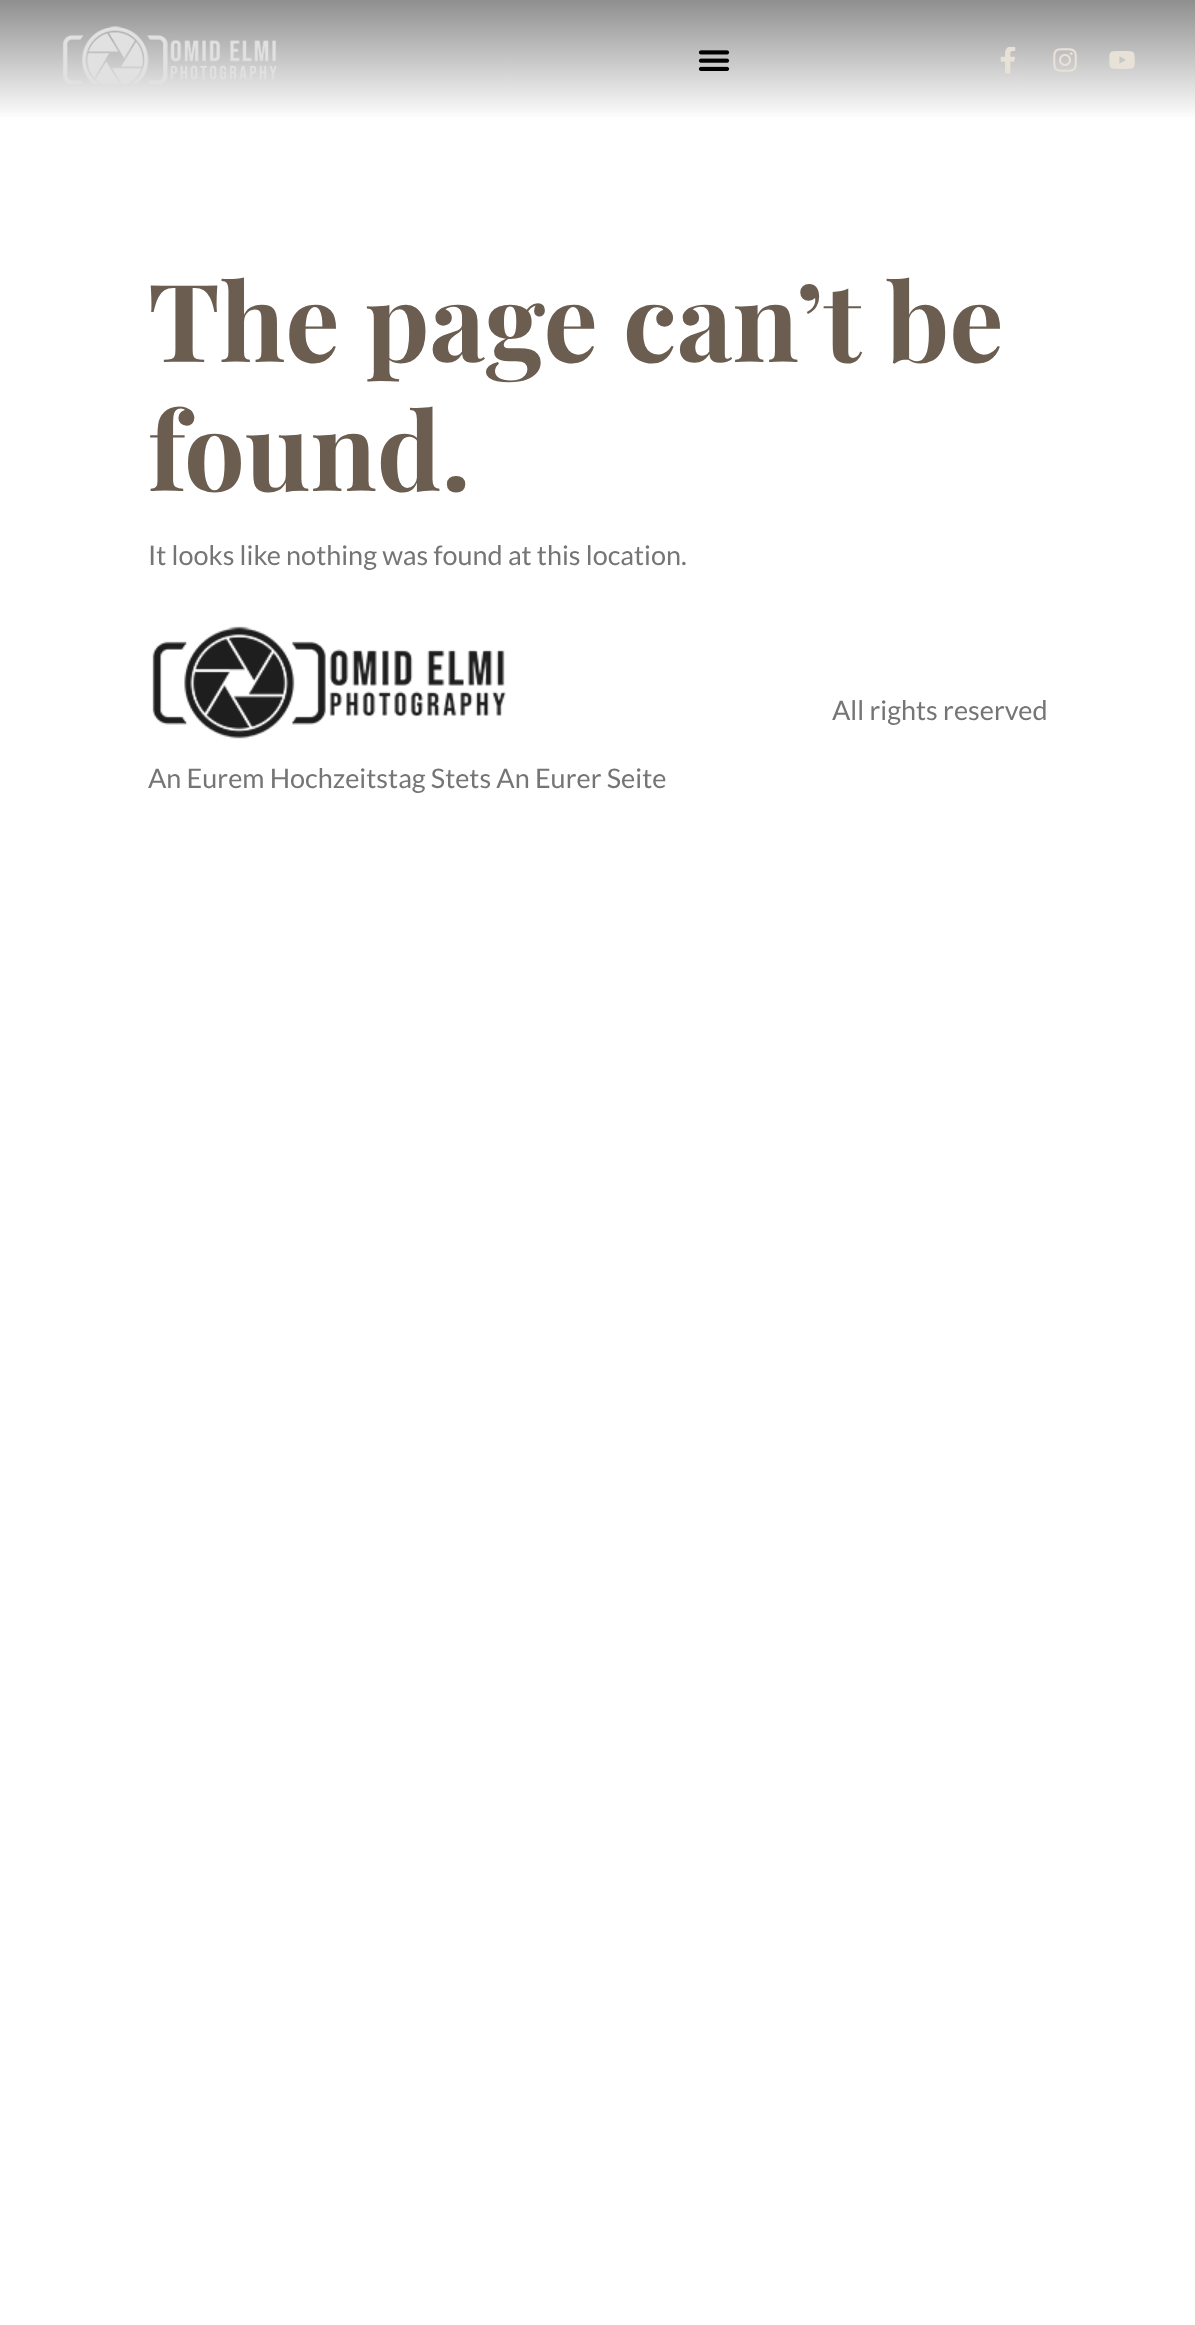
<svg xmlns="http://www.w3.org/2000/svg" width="1195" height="2325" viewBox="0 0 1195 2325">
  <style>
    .t1 { font: bold 108px Playfair Display; fill: #6b5e50; }
    .t2 { font: 27px Lato; fill: #757575; }
  </style>
  <defs>
    <linearGradient id="g1" gradientUnits="userSpaceOnUse" x1="598" y1="0" x2="598" y2="120"><stop offset="0" stop-color="#8f8f8f"/><stop offset="1" stop-color="#fff"/></linearGradient>
  </defs>
  <rect width="100%" height="100%" fill="#fff"/>
  <rect x="0" y="0" width="1195" height="117" fill="url(#g1)"/>
  <image x="62" y="26" width="215" height="58" href="images/1.png"/>
  <image x="698" y="50" width="32" height="21" href="images/2.png"/>
  <image x="1000" y="47" width="16" height="27" href="images/3.png"/>
  <image x="1053" y="48" width="24" height="24" href="images/4.png"/>
  <image x="1109" y="51" width="26" height="18" href="images/5.png"/>
  <text x="148" y="362" class="t1">The page can’t be</text>
  <text x="148" y="491" class="t1">found.</text>
  <text x="148" y="565" class="t2">It looks like nothing was found at this location.</text>
  <text x="832" y="720" class="t2">All rights reserved</text>
  <image x="152" y="626" width="354" height="113" href="images/6.png"/>
  <text x="148" y="788" class="t2">An Eurem Hochzeitstag Stets An Eurer Seite</text>
</svg>
